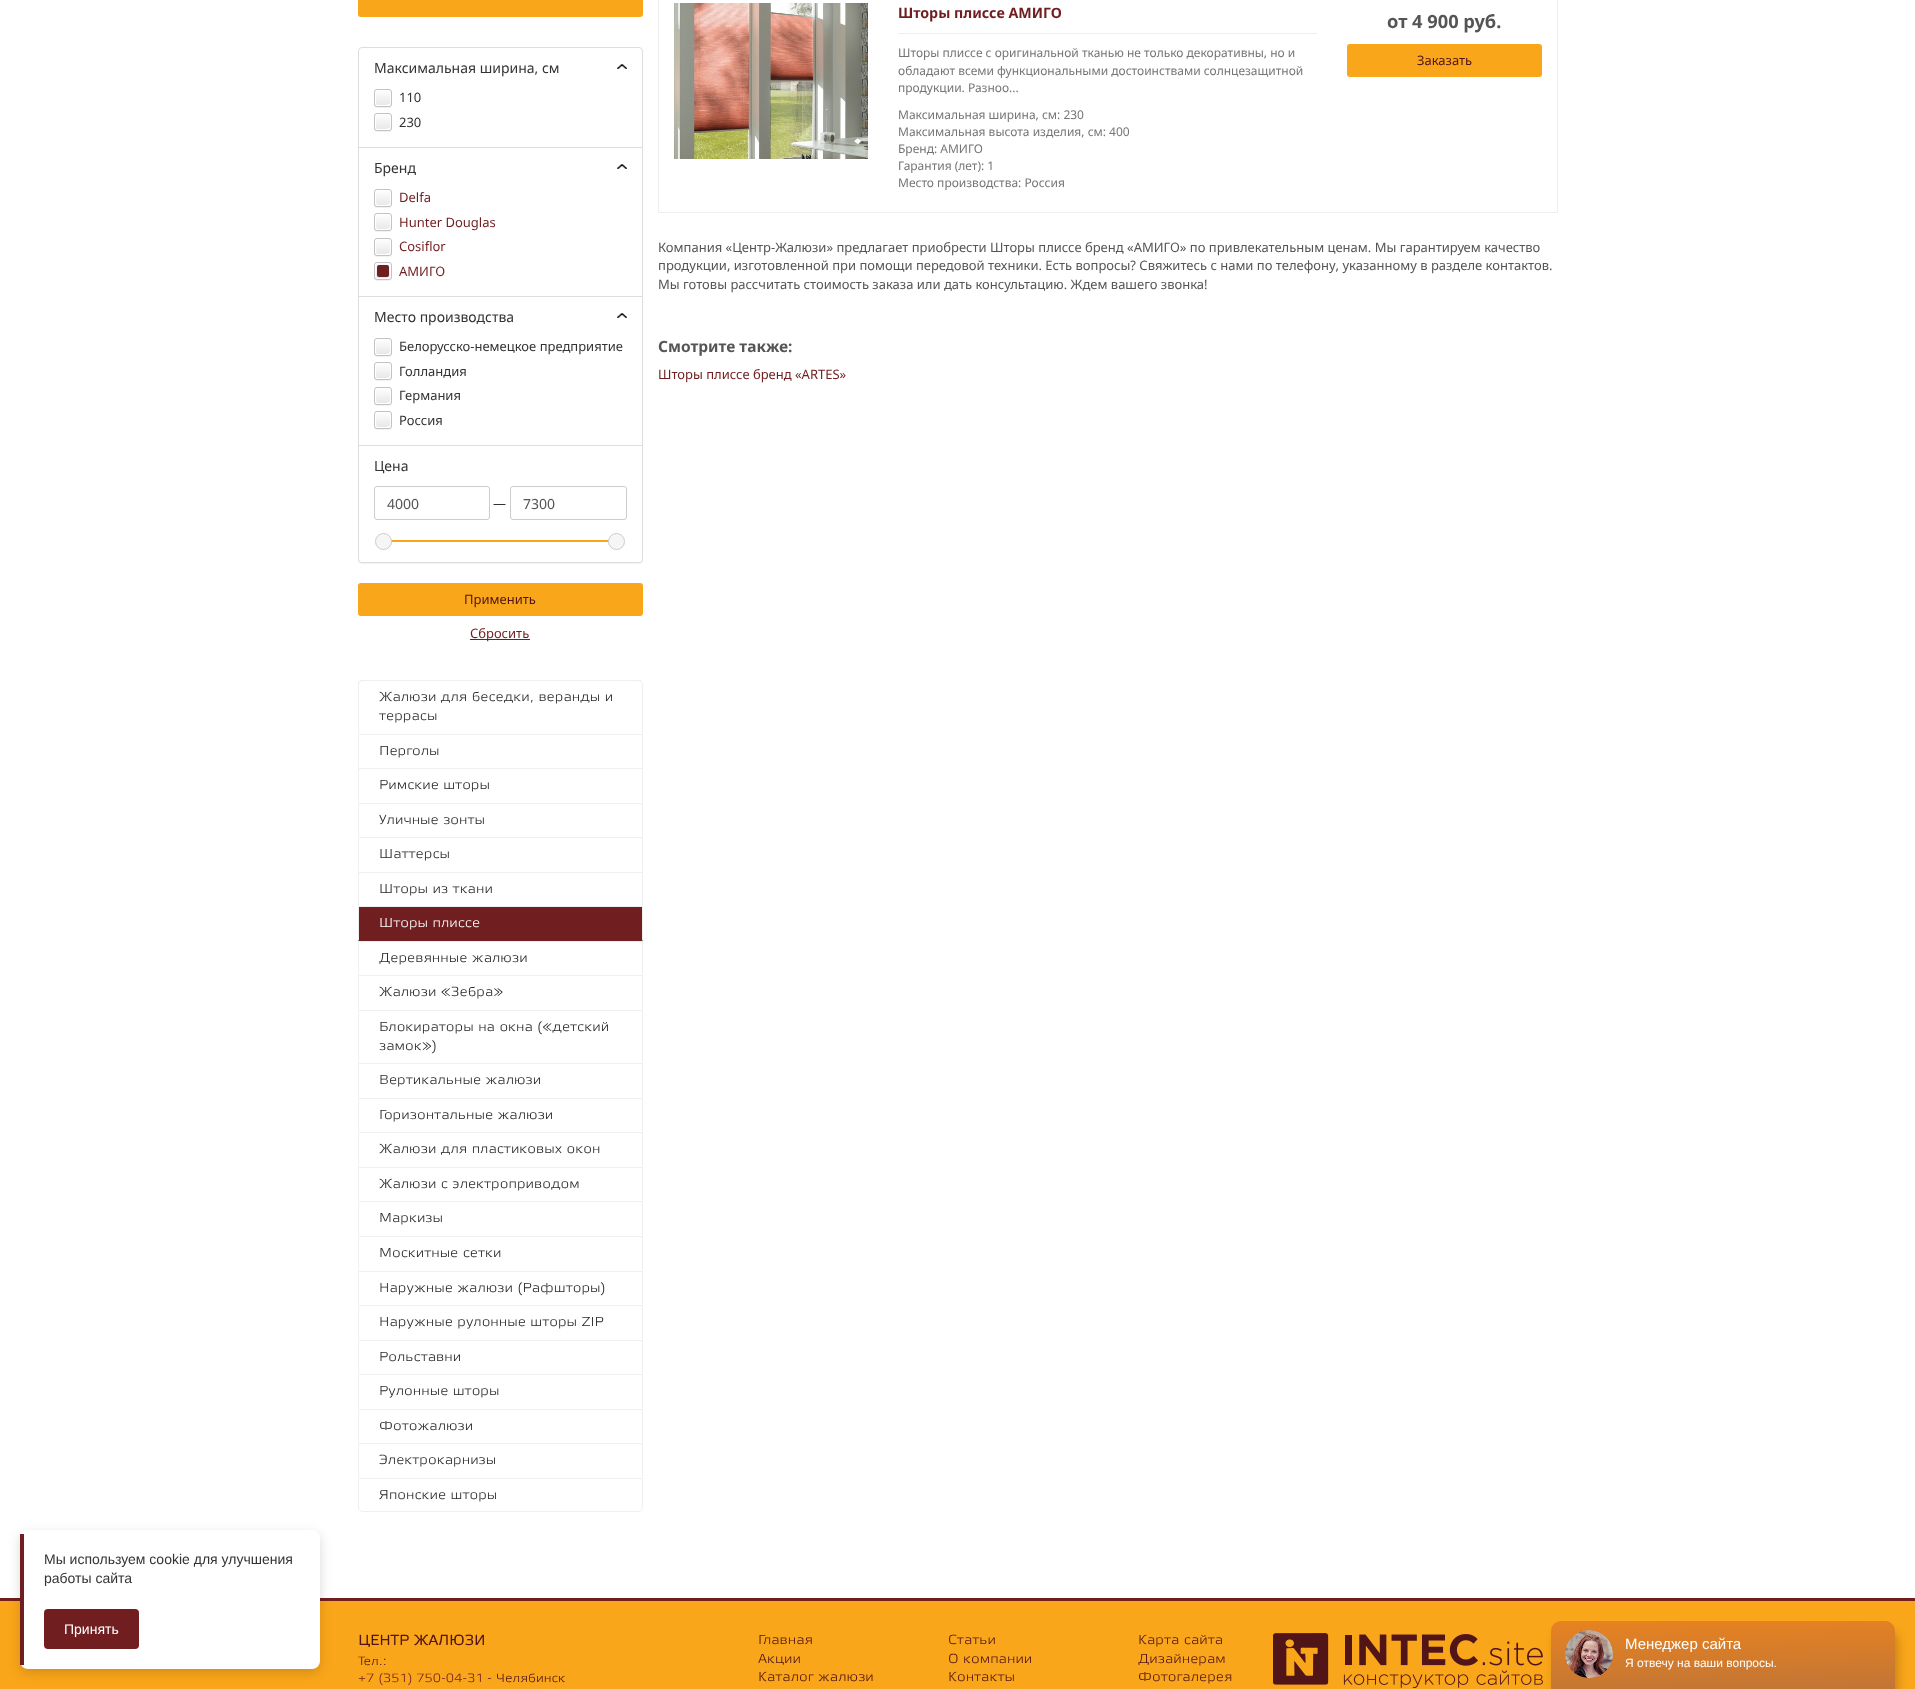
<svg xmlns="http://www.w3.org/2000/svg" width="1915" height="1689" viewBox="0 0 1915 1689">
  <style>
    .t1 { font: 14px Liberation Sans; fill: #333; }
    .t2 { font: 14px Liberation Sans; fill: #fff; }
    .t3 { font: 14px Noto Sans; fill: #333; }
    .t4 { font: 13px Noto Sans; fill: #333; }
    .t5 { font: 13px Noto Sans; fill: #701e20; }
    .t6 { font: 14px Noto Sans; fill: #555; }
    .t7 { font: 13px Noto Sans; fill: #511517; }
    .t8 { font: 13px 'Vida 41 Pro'; fill: #292929; }
    .t9 { font: 13px 'Vida 41 Pro'; fill: #fff; }
    .t10 { font: bold 14.25px Noto Sans; fill: #701e20; }
    .t11 { font: 12px Noto Sans; fill: #757575; }
    .t12 { font: bold 18.25px Noto Sans; fill: #555; }
    .t13 { font: 13px Noto Sans; fill: #555; }
    .t14 { font: bold 15.5px Noto Sans; fill: #555; }
    .t15 { font: bold 14px 'Vida 41 Pro'; fill: #511517; }
    .t16 { font: 12px 'Vida 41 Pro'; fill: #511517; }
    .t17 { font: 12px 'Vida 41 Pro'; fill: #701e20; }
    .t18 { font: 13px 'Vida 41 Pro'; fill: #511517; }
    .t19 { font: 15px Liberation Sans; fill: #fff; }
    .t20 { font: 12px Liberation Sans; fill: #fff; }
  </style>
  <defs>
    <clipPath id="clip1"><rect x="374" y="89" width="18" height="18" rx="3"/></clipPath>
    <linearGradient id="g1" gradientUnits="userSpaceOnUse" x1="383" y1="90" x2="383" y2="106"><stop offset="0" stop-color="#fff"/><stop offset="1" stop-color="#e6e6e6"/></linearGradient>
    <clipPath id="clip2"><rect x="374" y="113" width="18" height="18" rx="3"/></clipPath>
    <linearGradient id="g2" gradientUnits="userSpaceOnUse" x1="383" y1="114" x2="383" y2="130"><stop offset="0" stop-color="#fff"/><stop offset="1" stop-color="#e6e6e6"/></linearGradient>
    <clipPath id="clip3"><rect x="374" y="189" width="18" height="18" rx="3"/></clipPath>
    <linearGradient id="g3" gradientUnits="userSpaceOnUse" x1="383" y1="190" x2="383" y2="206"><stop offset="0" stop-color="#fff"/><stop offset="1" stop-color="#e6e6e6"/></linearGradient>
    <clipPath id="clip4"><rect x="374" y="213" width="18" height="18" rx="3"/></clipPath>
    <linearGradient id="g4" gradientUnits="userSpaceOnUse" x1="383" y1="214" x2="383" y2="230"><stop offset="0" stop-color="#fff"/><stop offset="1" stop-color="#e6e6e6"/></linearGradient>
    <clipPath id="clip5"><rect x="374" y="238" width="18" height="18" rx="3"/></clipPath>
    <linearGradient id="g5" gradientUnits="userSpaceOnUse" x1="383" y1="239" x2="383" y2="255"><stop offset="0" stop-color="#fff"/><stop offset="1" stop-color="#e6e6e6"/></linearGradient>
    <clipPath id="clip6"><rect x="374" y="262" width="18" height="18" rx="3"/></clipPath>
    <linearGradient id="g6" gradientUnits="userSpaceOnUse" x1="383" y1="263" x2="383" y2="279"><stop offset="0" stop-color="#fff"/><stop offset="1" stop-color="#e6e6e6"/></linearGradient>
    <clipPath id="clip7"><rect x="374" y="338" width="18" height="18" rx="3"/></clipPath>
    <linearGradient id="g7" gradientUnits="userSpaceOnUse" x1="383" y1="339" x2="383" y2="355"><stop offset="0" stop-color="#fff"/><stop offset="1" stop-color="#e6e6e6"/></linearGradient>
    <clipPath id="clip8"><rect x="374" y="362" width="18" height="18" rx="3"/></clipPath>
    <linearGradient id="g8" gradientUnits="userSpaceOnUse" x1="383" y1="363" x2="383" y2="379"><stop offset="0" stop-color="#fff"/><stop offset="1" stop-color="#e6e6e6"/></linearGradient>
    <clipPath id="clip9"><rect x="374" y="387" width="18" height="18" rx="3"/></clipPath>
    <linearGradient id="g9" gradientUnits="userSpaceOnUse" x1="383" y1="388" x2="383" y2="404"><stop offset="0" stop-color="#fff"/><stop offset="1" stop-color="#e6e6e6"/></linearGradient>
    <clipPath id="clip10"><rect x="374" y="411" width="18" height="18" rx="3"/></clipPath>
    <linearGradient id="g10" gradientUnits="userSpaceOnUse" x1="383" y1="412" x2="383" y2="428"><stop offset="0" stop-color="#fff"/><stop offset="1" stop-color="#e6e6e6"/></linearGradient>
    <linearGradient id="g11" gradientUnits="userSpaceOnUse" x1="1724" y1="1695" x2="1722" y2="1615"><stop offset="0" stop-color="#c17536"/><stop offset="1" stop-color="#e88320"/></linearGradient>
  </defs>
  <rect width="100%" height="100%" fill="#fff"/>
  <rect x="0" y="1601" width="1915" height="88" fill="#faa61a"/>
  <rect x="0" y="1598" width="1915" height="3" fill="#701e20"/>
  <rect x="20" y="1534" width="300" height="139" rx="8" fill="#00000026" filter="blur(6px)"/>
  <rect x="20" y="1530" width="300" height="139" rx="8" fill="#fff"/>
  <rect x="20" y="1534" width="4" height="131" fill="#701e20"/>
  <text x="44" y="1564" class="t1">Мы используем cookie для улучшения</text>
  <text x="44" y="1583" class="t1">работы сайта</text>
  <rect x="44" y="1609" width="95" height="40" rx="4" fill="#701e20"/>
  <text x="64" y="1634" class="t2">Принять</text>
  <rect x="358" y="-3" width="285" height="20" rx="3" fill="#faa61a"/>
  <rect x="358" y="48" width="285" height="516" rx="4" fill="#0000000d" filter="blur(0.5px)"/>
  <rect x="358.5" y="47.5" width="284" height="515" rx="3.5" fill="#fff" stroke="#ddd"/>
  <text x="374" y="73" class="t3">Максимальная ширина, см</text>
  <image x="617" y="64" width="10" height="5" href="images/1.png"/>
  <rect x="374" y="90" width="18" height="18" rx="3" fill="#0000000d" filter="blur(0.5px)"/>
  <g clip-path="url(#clip1)">
    <rect x="374" y="90" width="18" height="16" fill="url(#g1)"/>
  </g>
  <path d="M376.5 90C375.5 90.5 375 91 375 92V104C375 105 376 106 377 106H389C390 106 390.5 105.5 391 104.5C389 105.5 386.5 105 384.5 105H378L376.5 104.5L376 101.5C376 99.5 376 91 376.5 90Z" fill="#fff"/>
  <path d="M375 105C375.5 105.5 376 106 377 106H389C390 106 391 105 391 104V92C391 91 390.5 90.5 390 90L390.5 92L390 97L390.5 102L390 103.5L388.5 104.5C387.5 105 376 105.5 375 105Z" fill="#fff"/>
  <rect x="374.5" y="89.5" width="17" height="17" rx="2.5" fill="none" stroke="#c3c3c3"/>
  <text x="399" y="102" class="t4">110</text>
  <rect x="374" y="114" width="18" height="18" rx="3" fill="#0000000d" filter="blur(0.5px)"/>
  <g clip-path="url(#clip2)">
    <rect x="374" y="114" width="18" height="16" fill="url(#g2)"/>
  </g>
  <path d="M376.5 114C375.5 114.5 375 115 375 116V128C375 129 376 130 377 130H389C390 130 390.5 129.5 391 128.5C389 129.5 386.5 129 384.5 129H378L376.5 128.5L376 125.5C376 123.5 376 115 376.5 114Z" fill="#fff"/>
  <path d="M375 129C375.5 129.5 376 130 377 130H389C390 130 391 129 391 128V116C391 115 390.5 114.5 390 114L390.5 116L390 121L390.5 126L390 127.5L388.5 128.5C387.5 129 376 129.5 375 129Z" fill="#fff"/>
  <rect x="374.5" y="113.5" width="17" height="17" rx="2.5" fill="none" stroke="#c3c3c3"/>
  <text x="399" y="127" class="t4">230</text>
  <rect x="359" y="147" width="283" height="1" fill="#ddd"/>
  <text x="374" y="173" class="t3">Бренд</text>
  <image x="617" y="164" width="10" height="5" href="images/1.png"/>
  <rect x="374" y="190" width="18" height="18" rx="3" fill="#0000000d" filter="blur(0.5px)"/>
  <g clip-path="url(#clip3)">
    <rect x="374" y="190" width="18" height="16" fill="url(#g3)"/>
  </g>
  <path d="M376.5 190C375.5 190.5 375 191 375 192V204C375 205 376 206 377 206H389C390 206 390.5 205.5 391 204.5C389 205.5 386.5 205 384.5 205H378L376.5 204.5L376 201.5C376 199.5 376 191 376.5 190Z" fill="#fff"/>
  <path d="M375 205C375.5 205.5 376 206 377 206H389C390 206 391 205 391 204V192C391 191 390.5 190.5 390 190L390.5 192L390 197L390.5 202L390 203.5L388.5 204.5C387.5 205 376 205.5 375 205Z" fill="#fff"/>
  <rect x="374.5" y="189.5" width="17" height="17" rx="2.5" fill="none" stroke="#c3c3c3"/>
  <text x="399" y="202" class="t5">Delfa</text>
  <rect x="374" y="214" width="18" height="18" rx="3" fill="#0000000d" filter="blur(0.5px)"/>
  <g clip-path="url(#clip4)">
    <rect x="374" y="214" width="18" height="16" fill="url(#g4)"/>
  </g>
  <path d="M376.5 214C375.5 214.5 375 215 375 216V228C375 229 376 230 377 230H389C390 230 390.5 229.5 391 228.5C389 229.5 386.5 229 384.5 229H378L376.5 228.5L376 225.5C376 223.5 376 215 376.5 214Z" fill="#fff"/>
  <path d="M375 229C375.5 229.5 376 230 377 230H389C390 230 391 229 391 228V216C391 215 390.5 214.5 390 214L390.5 216L390 221L390.5 226L390 227.5L388.5 228.5C387.5 229 376 229.5 375 229Z" fill="#fff"/>
  <rect x="374.5" y="213.5" width="17" height="17" rx="2.5" fill="none" stroke="#c3c3c3"/>
  <text x="399" y="227" class="t5">Hunter Douglas</text>
  <rect x="374" y="239" width="18" height="18" rx="3" fill="#0000000d" filter="blur(0.5px)"/>
  <g clip-path="url(#clip5)">
    <rect x="374" y="239" width="18" height="16" fill="url(#g5)"/>
  </g>
  <path d="M376.5 239C375.5 239.5 375 240 375 241V253C375 254 376 255 377 255H389C390 255 390.5 254.5 391 253.5C389 254.5 386.5 254 384.5 254H378L376.5 253.5L376 250.5C376 248.5 376 240 376.5 239Z" fill="#fff"/>
  <path d="M375 254C375.5 254.5 376 255 377 255H389C390 255 391 254 391 253V241C391 240 390.5 239.5 390 239L390.5 241L390 246L390.5 251L390 252.5L388.5 253.5C387.5 254 376 254.5 375 254Z" fill="#fff"/>
  <rect x="374.5" y="238.5" width="17" height="17" rx="2.5" fill="none" stroke="#c3c3c3"/>
  <text x="399" y="251" class="t5">Cosiflor</text>
  <rect x="374" y="263" width="18" height="18" rx="3" fill="#0000000d" filter="blur(0.5px)"/>
  <g clip-path="url(#clip6)">
    <rect x="374" y="263" width="18" height="16" fill="url(#g6)"/>
  </g>
  <path d="M376.5 263C375.5 263.5 375 264 375 265V277C375 278 376 279 377 279H389C390 279 390.5 278.5 391 277.5C389 278.5 386.5 278 384.5 278H378L376.5 277.5L376 274.5C376 272.5 376 264 376.5 263Z" fill="#fff"/>
  <path d="M375 278C375.5 278.5 376 279 377 279H389C390 279 391 278 391 277V265C391 264 390.5 263.5 390 263L390.5 265L390 270L390.5 275L390 276.5L388.5 277.5C387.5 278 376 278.5 375 278Z" fill="#fff"/>
  <rect x="374.5" y="262.5" width="17" height="17" rx="2.5" fill="none" stroke="#c3c3c3"/>
  <rect x="377" y="265" width="12" height="12" rx="2" fill="#701e20"/>
  <text x="399" y="276" class="t5">АМИГО</text>
  <rect x="359" y="296" width="283" height="1" fill="#ddd"/>
  <text x="374" y="322" class="t3">Место производства</text>
  <image x="617" y="313" width="10" height="5" href="images/1.png"/>
  <rect x="374" y="339" width="18" height="18" rx="3" fill="#0000000d" filter="blur(0.5px)"/>
  <g clip-path="url(#clip7)">
    <rect x="374" y="339" width="18" height="16" fill="url(#g7)"/>
  </g>
  <path d="M376.5 339C375.5 339.5 375 340 375 341V353C375 354 376 355 377 355H389C390 355 390.5 354.5 391 353.5C389 354.5 386.5 354 384.5 354H378L376.5 353.5L376 350.5C376 348.5 376 340 376.5 339Z" fill="#fff"/>
  <path d="M375 354C375.5 354.5 376 355 377 355H389C390 355 391 354 391 353V341C391 340 390.5 339.5 390 339L390.5 341L390 346L390.5 351L390 352.5L388.5 353.5C387.5 354 376 354.5 375 354Z" fill="#fff"/>
  <rect x="374.5" y="338.5" width="17" height="17" rx="2.5" fill="none" stroke="#c3c3c3"/>
  <text x="399" y="351" class="t4">Белорусско-немецкое предприятие</text>
  <rect x="374" y="363" width="18" height="18" rx="3" fill="#0000000d" filter="blur(0.5px)"/>
  <g clip-path="url(#clip8)">
    <rect x="374" y="363" width="18" height="16" fill="url(#g8)"/>
  </g>
  <path d="M376.5 363C375.5 363.5 375 364 375 365V377C375 378 376 379 377 379H389C390 379 390.5 378.5 391 377.5C389 378.5 386.5 378 384.5 378H378L376.5 377.5L376 374.5C376 372.5 376 364 376.5 363Z" fill="#fff"/>
  <path d="M375 378C375.5 378.5 376 379 377 379H389C390 379 391 378 391 377V365C391 364 390.5 363.5 390 363L390.5 365L390 370L390.5 375L390 376.5L388.5 377.5C387.5 378 376 378.5 375 378Z" fill="#fff"/>
  <rect x="374.5" y="362.5" width="17" height="17" rx="2.5" fill="none" stroke="#c3c3c3"/>
  <text x="399" y="376" class="t4">Голландия</text>
  <rect x="374" y="388" width="18" height="18" rx="3" fill="#0000000d" filter="blur(0.5px)"/>
  <g clip-path="url(#clip9)">
    <rect x="374" y="388" width="18" height="16" fill="url(#g9)"/>
  </g>
  <path d="M376.5 388C375.5 388.5 375 389 375 390V402C375 403 376 404 377 404H389C390 404 390.5 403.5 391 402.5C389 403.5 386.5 403 384.5 403H378L376.5 402.5L376 399.5C376 397.5 376 389 376.5 388Z" fill="#fff"/>
  <path d="M375 403C375.5 403.5 376 404 377 404H389C390 404 391 403 391 402V390C391 389 390.5 388.5 390 388L390.5 390L390 395L390.5 400L390 401.5L388.5 402.5C387.5 403 376 403.5 375 403Z" fill="#fff"/>
  <rect x="374.5" y="387.5" width="17" height="17" rx="2.5" fill="none" stroke="#c3c3c3"/>
  <text x="399" y="400" class="t4">Германия</text>
  <rect x="374" y="412" width="18" height="18" rx="3" fill="#0000000d" filter="blur(0.5px)"/>
  <g clip-path="url(#clip10)">
    <rect x="374" y="412" width="18" height="16" fill="url(#g10)"/>
  </g>
  <path d="M376.5 412C375.5 412.5 375 413 375 414V426C375 427 376 428 377 428H389C390 428 390.5 427.5 391 426.5C389 427.5 386.5 427 384.5 427H378L376.5 426.5L376 423.5C376 421.5 376 413 376.5 412Z" fill="#fff"/>
  <path d="M375 427C375.5 427.5 376 428 377 428H389C390 428 391 427 391 426V414C391 413 390.5 412.5 390 412L390.5 414L390 419L390.5 424L390 425.5L388.5 426.5C387.5 427 376 427.5 375 427Z" fill="#fff"/>
  <rect x="374.5" y="411.5" width="17" height="17" rx="2.5" fill="none" stroke="#c3c3c3"/>
  <text x="399" y="425" class="t4">Россия</text>
  <rect x="359" y="445" width="283" height="1" fill="#ddd"/>
  <text x="374" y="471" class="t3">Цена</text>
  <rect x="374.5" y="486.5" width="115" height="33" rx="2.5" fill="none" stroke="#ccc"/>
  <text x="387" y="509" class="t6">4000</text>
  <text x="493" y="508" class="t4">—</text>
  <rect x="510.5" y="486.5" width="116" height="33" rx="2.5" fill="none" stroke="#ccc"/>
  <text x="523" y="509" class="t6">7300</text>
  <rect x="384" y="540" width="233" height="2" fill="#faa61a"/>
  <circle cx="383.5" cy="541.5" r="8" fill="#f6f6f6" stroke="#ccc"/>
  <circle cx="616.5" cy="541.5" r="8" fill="#f6f6f6" stroke="#ccc"/>
  <rect x="358" y="583" width="285" height="33" rx="3" fill="#faa61a"/>
  <text x="464" y="604" class="t7">Применить</text>
  <rect x="470" y="639" width="60" height="1" fill="#701e20"/>
  <text x="470" y="638" class="t5">Cбросить</text>
  <path d="M363 680C362 680 360 680 359 681L360 682C361 682 362 681 363 681H638C639 681 640 682 641 682L642 681C641 680 640 680 638 680Z" fill="#efefef"/>
  <path d="M643 734V685C643 684 642 682 642 681L641 682L642 684V733Z" fill="#efefef"/>
  <path d="M358 734L359 733V684L360 682L359 681C358 682 358 684 358 685Z" fill="#efefef"/>
  <text x="379" y="701" class="t8">Жалюзи для беседки, веранды и</text>
  <text x="379" y="720" class="t8">террасы</text>
  <rect x="358" y="734" width="285" height="1" fill="#efefef"/>
  <path d="M643 734V768L642 767V735Z" fill="#efefef"/>
  <path d="M358 768V734L359 735V767Z" fill="#efefef"/>
  <text x="379" y="755" class="t8">Перголы</text>
  <rect x="358" y="768" width="285" height="1" fill="#efefef"/>
  <path d="M643 768V803L642 802V769Z" fill="#efefef"/>
  <path d="M358 803V768L359 769V802Z" fill="#efefef"/>
  <text x="379" y="789" class="t8">Римские шторы</text>
  <rect x="358" y="803" width="285" height="1" fill="#efefef"/>
  <path d="M643 803V837L642 836V804Z" fill="#efefef"/>
  <path d="M358 837V803L359 804V836Z" fill="#efefef"/>
  <text x="379" y="824" class="t8">Уличные зонты</text>
  <rect x="358" y="837" width="285" height="1" fill="#efefef"/>
  <path d="M643 837V872L642 871V838Z" fill="#efefef"/>
  <path d="M358 872V837L359 838V871Z" fill="#efefef"/>
  <text x="379" y="858" class="t8">Шаттерсы</text>
  <rect x="358" y="872" width="285" height="1" fill="#efefef"/>
  <path d="M643 872V906L642 905V873Z" fill="#efefef"/>
  <path d="M358 906V872L359 873V905Z" fill="#efefef"/>
  <text x="379" y="893" class="t8">Шторы из ткани</text>
  <rect x="358" y="907" width="285" height="34" fill="#701e20"/>
  <rect x="358" y="906" width="285" height="1" fill="#efefef"/>
  <path d="M643 906V941L642 940V907Z" fill="#efefef"/>
  <path d="M358 941V906L359 907V940Z" fill="#efefef"/>
  <text x="379" y="927" class="t9">Шторы плиссе</text>
  <rect x="358" y="941" width="285" height="1" fill="#efefef"/>
  <path d="M643 941V975L642 974V942Z" fill="#efefef"/>
  <path d="M358 975V941L359 942V974Z" fill="#efefef"/>
  <text x="379" y="962" class="t8">Деревянные жалюзи</text>
  <rect x="358" y="975" width="285" height="1" fill="#efefef"/>
  <path d="M643 975V1010L642 1009V976Z" fill="#efefef"/>
  <path d="M358 1010V975L359 976V1009Z" fill="#efefef"/>
  <text x="379" y="996" class="t8">Жалюзи «Зебра»</text>
  <rect x="358" y="1010" width="285" height="1" fill="#efefef"/>
  <path d="M643 1010V1063L642 1062V1011Z" fill="#efefef"/>
  <path d="M358 1063V1010L359 1011V1062Z" fill="#efefef"/>
  <text x="379" y="1031" class="t8">Блокираторы на окна («детский</text>
  <text x="379" y="1050" class="t8">замок»)</text>
  <rect x="358" y="1063" width="285" height="1" fill="#efefef"/>
  <path d="M643 1063V1098L642 1097V1064Z" fill="#efefef"/>
  <path d="M358 1098V1063L359 1064V1097Z" fill="#efefef"/>
  <text x="379" y="1084" class="t8">Вертикальные жалюзи</text>
  <rect x="358" y="1098" width="285" height="1" fill="#efefef"/>
  <path d="M643 1098V1132L642 1131V1099Z" fill="#efefef"/>
  <path d="M358 1132V1098L359 1099V1131Z" fill="#efefef"/>
  <text x="379" y="1119" class="t8">Горизонтальные жалюзи</text>
  <rect x="358" y="1132" width="285" height="1" fill="#efefef"/>
  <path d="M643 1132V1167L642 1166V1133Z" fill="#efefef"/>
  <path d="M358 1167V1132L359 1133V1166Z" fill="#efefef"/>
  <text x="379" y="1153" class="t8">Жалюзи для пластиковых окон</text>
  <rect x="358" y="1167" width="285" height="1" fill="#efefef"/>
  <path d="M643 1167V1201L642 1200V1168Z" fill="#efefef"/>
  <path d="M358 1201V1167L359 1168V1200Z" fill="#efefef"/>
  <text x="379" y="1188" class="t8">Жалюзи с электроприводом</text>
  <rect x="358" y="1201" width="285" height="1" fill="#efefef"/>
  <path d="M643 1201V1236L642 1235V1202Z" fill="#efefef"/>
  <path d="M358 1236V1201L359 1202V1235Z" fill="#efefef"/>
  <text x="379" y="1222" class="t8">Маркизы</text>
  <rect x="358" y="1236" width="285" height="1" fill="#efefef"/>
  <path d="M643 1236V1271L642 1270V1237Z" fill="#efefef"/>
  <path d="M358 1271V1236L359 1237V1270Z" fill="#efefef"/>
  <text x="379" y="1257" class="t8">Москитные сетки</text>
  <rect x="358" y="1271" width="285" height="1" fill="#efefef"/>
  <path d="M643 1271V1305L642 1304V1272Z" fill="#efefef"/>
  <path d="M358 1305V1271L359 1272V1304Z" fill="#efefef"/>
  <text x="379" y="1292" class="t8">Наружные жалюзи (Рафшторы)</text>
  <rect x="358" y="1305" width="285" height="1" fill="#efefef"/>
  <path d="M643 1305V1340L642 1339V1306Z" fill="#efefef"/>
  <path d="M358 1340V1305L359 1306V1339Z" fill="#efefef"/>
  <text x="379" y="1326" class="t8">Наружные рулонные шторы ZIP</text>
  <rect x="358" y="1340" width="285" height="1" fill="#efefef"/>
  <path d="M643 1340V1374L642 1373V1341Z" fill="#efefef"/>
  <path d="M358 1374V1340L359 1341V1373Z" fill="#efefef"/>
  <text x="379" y="1361" class="t8">Рольставни</text>
  <rect x="358" y="1374" width="285" height="1" fill="#efefef"/>
  <path d="M643 1374V1409L642 1408V1375Z" fill="#efefef"/>
  <path d="M358 1409V1374L359 1375V1408Z" fill="#efefef"/>
  <text x="379" y="1395" class="t8">Рулонные шторы</text>
  <rect x="358" y="1409" width="285" height="1" fill="#efefef"/>
  <path d="M643 1409V1443L642 1442V1410Z" fill="#efefef"/>
  <path d="M358 1443V1409L359 1410V1442Z" fill="#efefef"/>
  <text x="379" y="1430" class="t8">Фотожалюзи</text>
  <rect x="358" y="1443" width="285" height="1" fill="#efefef"/>
  <path d="M643 1443V1478L642 1477V1444Z" fill="#efefef"/>
  <path d="M358 1478V1443L359 1444V1477Z" fill="#efefef"/>
  <text x="379" y="1464" class="t8">Электрокарнизы</text>
  <path d="M358.5 1478.5H642.5V1507C642.5 1509.5 640.5 1511.5 638 1511.5H363C360.5 1511.5 358.5 1509.5 358.5 1507Z" fill="none" stroke="#efefef"/>
  <text x="379" y="1499" class="t8">Японские шторы</text>
  <rect x="658.5" y="-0.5" width="899" height="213" fill="none" stroke="#efefef"/>
  <image x="674" y="3" width="194" height="156" href="images/2.png"/>
  <text x="898" y="18" class="t10">Шторы плиссе АМИГО</text>
  <rect x="898" y="33" width="419" height="1" fill="#eee"/>
  <text x="898" y="57" class="t11">Шторы плиссе с оригинальной тканью не только декоративны, но и</text>
  <text x="898" y="75" class="t11">обладают всеми функциональными достоинствами солнцезащитной</text>
  <text x="898" y="92" class="t11">продукции. Разноо...</text>
  <text x="898" y="119" class="t11">Максимальная ширина, см: 230</text>
  <text x="898" y="136" class="t11">Максимальная высота изделия, см: 400</text>
  <text x="898" y="153" class="t11">Бренд: АМИГО</text>
  <text x="898" y="170" class="t11">Гарантия (лет): 1</text>
  <text x="898" y="187" class="t11">Место производства: Россия</text>
  <text x="1387" y="28" class="t12">от 4 900 руб.</text>
  <rect x="1347" y="44" width="195" height="33" rx="3" fill="#faa61a"/>
  <text x="1417" y="65" class="t7">Заказать</text>
  <text x="658" y="252" class="t13">Компания «Центр-Жалюзи» предлагает приобрести Шторы плиссе бренд «АМИГО» по привлекательным ценам. Мы гарантируем качество</text>
  <text x="658" y="270" class="t13">продукции, изготовленной при помощи передовой техники. Есть вопросы? Свяжитесь с нами по телефону, указанному в разделе контактов.</text>
  <text x="658" y="289" class="t13">Мы готовы рассчитать стоимость заказа или дать консультацию. Ждем вашего звонка!</text>
  <text x="658" y="352" class="t14">Смотрите также:</text>
  <text x="658" y="379" class="t5">Шторы плиссе бренд «ARTES»</text>
  <text x="358" y="1645" class="t15">ЦЕНТР ЖАЛЮЗИ</text>
  <text x="358" y="1665" class="t16">Тел.:</text>
  <text x="358" y="1682" class="t17">+7 (351) 750-04-31</text>
  <text x="487" y="1682" class="t16">- Челябинск</text>
  <text x="758" y="1644" class="t18">Главная</text>
  <text x="758" y="1663" class="t18">Акции</text>
  <text x="758" y="1681" class="t18">Каталог жалюзи</text>
  <text x="948" y="1644" class="t18">Статьи</text>
  <text x="948" y="1663" class="t18">О компании</text>
  <text x="948" y="1681" class="t18">Контакты</text>
  <text x="1138" y="1644" class="t18">Карта сайта</text>
  <text x="1138" y="1663" class="t18">Дизайнерам</text>
  <text x="1138" y="1681" class="t18">Фотогалерея</text>
  <image x="1273" y="1633" width="270" height="55" href="images/3.png"/>
  <rect x="1554" y="1631" width="344" height="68" rx="10" fill="#00000033" filter="blur(5px)"/>
  <path d="M1561 1621H1885C1890.5 1621 1895 1625.5 1895 1631V1689H1551V1631C1551 1625.5 1555.5 1621 1561 1621Z" fill="url(#g11)"/>
  <image x="1565" y="1630" width="48" height="48" href="images/4.png"/>
  <text x="1625" y="1649" class="t19">Менеджер сайта</text>
  <text x="1625" y="1667" class="t20">Я отвечу на ваши вопросы.</text>
</svg>
